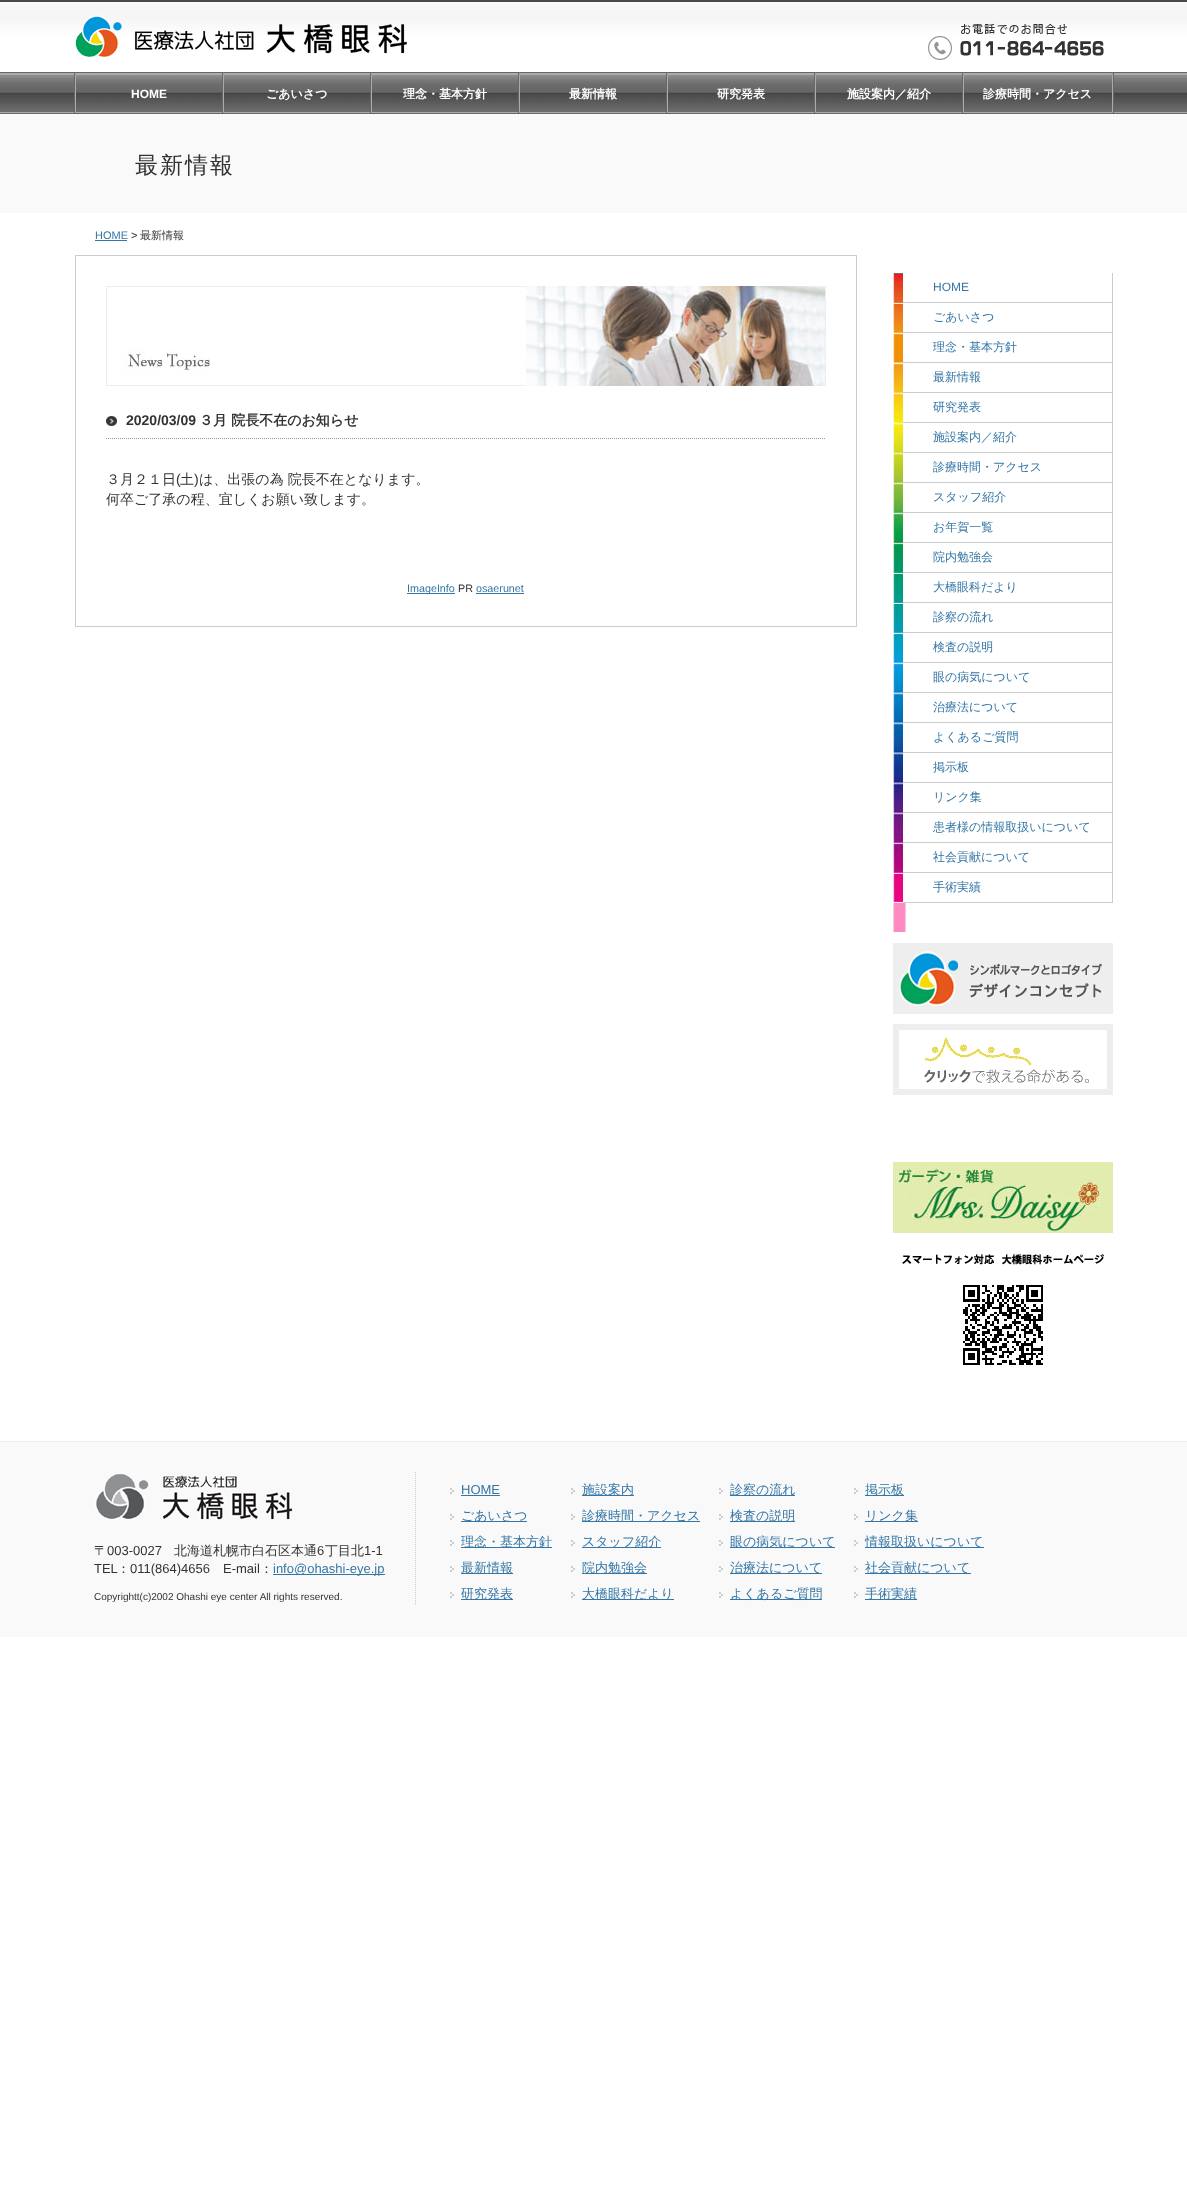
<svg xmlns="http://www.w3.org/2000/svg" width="1187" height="2211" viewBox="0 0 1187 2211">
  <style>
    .t1 { font: bold 12px Liberation Sans; fill: #fff; }
    .t2 { font: bold 12px WenQuanYi Zen Hei; fill: #fff; }
    .t3 { font: 500 23px WenQuanYi Zen Hei; letter-spacing: 2px; fill: #333; }
    .t4 { font: 11px Liberation Sans; fill: #3476a6; }
    .t5 { font: 11px Liberation Sans; fill: #333; }
    .t6 { font: 500 11px WenQuanYi Zen Hei; fill: #333; }
    .t7 { font: bold 14px Liberation Sans; fill: #333; }
    .t8 { font: bold 14px WenQuanYi Zen Hei; fill: #333; }
    .t9 { font: 500 14px WenQuanYi Zen Hei; fill: #333; }
    .t10 { font: 14px Liberation Sans; fill: #333; }
    .t11 { font: 10.75px Liberation Sans; fill: #3476a6; }
    .t12 { font: 10.75px Liberation Sans; fill: #333; }
    .t13 { font: 12px Liberation Sans; fill: #3476a6; }
    .t14 { font: 500 12px WenQuanYi Zen Hei; fill: #3476a6; }
    .t15 { font: 500 13px WenQuanYi Zen Hei; fill: #333; }
    .t16 { font: 13px Liberation Sans; fill: #333; }
    .t17 { font: 13px Liberation Sans; fill: #3476a6; }
    .t18 { font: 10px Liberation Sans; fill: #333; }
    .t19 { font: 500 13px WenQuanYi Zen Hei; fill: #3476a6; }
  </style>
  <rect width="100%" height="100%" fill="#fff"/>
  <image x="0" y="0" width="1187" height="213" href="images/1.png"/>
  <image x="75" y="15" width="332" height="42" href="images/2.png"/>
  <image x="928" y="23" width="176" height="37" href="images/3.png"/>
  <image x="76" y="74" width="146" height="38" href="images/4.png"/>
  <rect x="75.5" y="73.5" width="147" height="39" fill="none" stroke="#abaaa8"/>
  <rect x="74.5" y="72.5" width="149" height="41" fill="none" stroke="#676767"/>
  <text x="131" y="98" class="t1">HOME</text>
  <image x="224" y="74" width="146" height="38" href="images/4.png"/>
  <rect x="223.5" y="73.5" width="147" height="39" fill="none" stroke="#abaaa8"/>
  <rect x="222.5" y="72.5" width="149" height="41" fill="none" stroke="#676767"/>
  <text x="266" y="98" class="t2">ごあいさつ</text>
  <image x="372" y="74" width="146" height="38" href="images/4.png"/>
  <rect x="371.5" y="73.5" width="147" height="39" fill="none" stroke="#abaaa8"/>
  <rect x="370.5" y="72.5" width="149" height="41" fill="none" stroke="#676767"/>
  <text x="403" y="98" class="t2">理念・基本方針</text>
  <image x="520" y="74" width="146" height="38" href="images/4.png"/>
  <rect x="519.5" y="73.5" width="147" height="39" fill="none" stroke="#abaaa8"/>
  <rect x="518.5" y="72.5" width="149" height="41" fill="none" stroke="#676767"/>
  <text x="569" y="98" class="t2">最新情報</text>
  <image x="668" y="74" width="146" height="38" href="images/4.png"/>
  <rect x="667.5" y="73.5" width="147" height="39" fill="none" stroke="#abaaa8"/>
  <rect x="666.5" y="72.5" width="149" height="41" fill="none" stroke="#676767"/>
  <text x="717" y="98" class="t2">研究発表</text>
  <image x="816" y="74" width="146" height="38" href="images/4.png"/>
  <rect x="815.5" y="73.5" width="147" height="39" fill="none" stroke="#abaaa8"/>
  <rect x="814.5" y="72.5" width="149" height="41" fill="none" stroke="#676767"/>
  <text x="847" y="98" class="t2">施設案内／紹介</text>
  <image x="964" y="74" width="148" height="38" href="images/5.png"/>
  <rect x="963.5" y="73.5" width="149" height="39" fill="none" stroke="#abaaa8"/>
  <rect x="962.5" y="72.5" width="151" height="41" fill="none" stroke="#676767"/>
  <text x="983" y="98" class="t2">診療時間・アクセス</text>
  <text x="135" y="173" class="t3">最新情報</text>
  <text x="95" y="239" class="t4">HOME</text>
  <rect x="95" y="240" width="32" height="1" fill="#3476a6"/>
  <text x="131" y="239" class="t5">&gt;</text>
  <text x="140" y="239" class="t6">最新情報</text>
  <rect x="75.5" y="255.5" width="781" height="371" fill="none" stroke="#ccc"/>
  <image x="106" y="286" width="720" height="100" href="images/6.png"/>
  <image x="106" y="416" width="11" height="10" href="images/7.png"/>
  <path d="M106 438.5H826" fill="none" stroke="#999" stroke-dasharray="1 1"/>
  <text x="126" y="425" class="t7">2020/03/09</text>
  <text x="199" y="425" class="t8">３月 院長不在のお知らせ</text>
  <text x="106" y="484" class="t9">３月２１日</text>
  <text x="176" y="484" class="t10">(</text>
  <text x="180" y="484" class="t9">土</text>
  <text x="194" y="484" class="t10">)</text>
  <text x="199" y="484" class="t9">は、出張の為 院長不在となります。</text>
  <text x="106" y="504" class="t9">何卒ご了承の程、宜しくお願い致します。</text>
  <rect x="407" y="593" width="48" height="1" fill="#3476a6"/>
  <text x="407" y="592" class="t11">ImageInfo</text>
  <text x="458" y="592" class="t12">PR</text>
  <text x="476" y="592" class="t11">osaerunet</text>
  <rect x="476" y="593" width="48" height="1" fill="#3476a6"/>
  <image x="893" y="273" width="13" height="659" href="images/8.png"/>
  <rect x="903" y="273" width="3" height="29" fill="#fff"/>
  <rect x="1112" y="273" width="1" height="630" fill="#ccc"/>
  <rect x="903" y="302" width="210" height="1" fill="#ccc"/>
  <text x="933" y="291" class="t13">HOME</text>
  <rect x="903" y="303" width="3" height="29" fill="#fff"/>
  <rect x="903" y="332" width="210" height="1" fill="#ccc"/>
  <text x="933" y="321" class="t14">ごあいさつ</text>
  <rect x="903" y="333" width="3" height="29" fill="#fff"/>
  <rect x="903" y="362" width="210" height="1" fill="#ccc"/>
  <text x="933" y="351" class="t14">理念・基本方針</text>
  <rect x="903" y="363" width="3" height="29" fill="#fff"/>
  <rect x="903" y="392" width="210" height="1" fill="#ccc"/>
  <text x="933" y="381" class="t14">最新情報</text>
  <rect x="903" y="393" width="3" height="29" fill="#fff"/>
  <rect x="903" y="422" width="210" height="1" fill="#ccc"/>
  <text x="933" y="411" class="t14">研究発表</text>
  <rect x="903" y="423" width="3" height="29" fill="#fff"/>
  <rect x="903" y="452" width="210" height="1" fill="#ccc"/>
  <text x="933" y="441" class="t14">施設案内／紹介</text>
  <rect x="903" y="453" width="3" height="29" fill="#fff"/>
  <rect x="903" y="482" width="210" height="1" fill="#ccc"/>
  <text x="933" y="471" class="t14">診療時間・アクセス</text>
  <rect x="903" y="483" width="3" height="29" fill="#fff"/>
  <rect x="903" y="512" width="210" height="1" fill="#ccc"/>
  <text x="933" y="501" class="t14">スタッフ紹介</text>
  <rect x="903" y="513" width="3" height="29" fill="#fff"/>
  <rect x="903" y="542" width="210" height="1" fill="#ccc"/>
  <text x="933" y="531" class="t14">お年賀一覧</text>
  <rect x="903" y="543" width="3" height="29" fill="#fff"/>
  <rect x="903" y="572" width="210" height="1" fill="#ccc"/>
  <text x="933" y="561" class="t14">院内勉強会</text>
  <rect x="903" y="573" width="3" height="29" fill="#fff"/>
  <rect x="903" y="602" width="210" height="1" fill="#ccc"/>
  <text x="933" y="591" class="t14">大橋眼科だより</text>
  <rect x="903" y="603" width="3" height="29" fill="#fff"/>
  <rect x="903" y="632" width="210" height="1" fill="#ccc"/>
  <text x="933" y="621" class="t14">診察の流れ</text>
  <rect x="903" y="633" width="3" height="29" fill="#fff"/>
  <rect x="903" y="662" width="210" height="1" fill="#ccc"/>
  <text x="933" y="651" class="t14">検査の説明</text>
  <rect x="903" y="663" width="3" height="29" fill="#fff"/>
  <rect x="903" y="692" width="210" height="1" fill="#ccc"/>
  <text x="933" y="681" class="t14">眼の病気について</text>
  <rect x="903" y="693" width="3" height="29" fill="#fff"/>
  <rect x="903" y="722" width="210" height="1" fill="#ccc"/>
  <text x="933" y="711" class="t14">治療法について</text>
  <rect x="903" y="723" width="3" height="29" fill="#fff"/>
  <rect x="903" y="752" width="210" height="1" fill="#ccc"/>
  <text x="933" y="741" class="t14">よくあるご質問</text>
  <rect x="903" y="753" width="3" height="29" fill="#fff"/>
  <rect x="903" y="782" width="210" height="1" fill="#ccc"/>
  <text x="933" y="771" class="t14">掲示板</text>
  <rect x="903" y="783" width="3" height="29" fill="#fff"/>
  <rect x="903" y="812" width="210" height="1" fill="#ccc"/>
  <text x="933" y="801" class="t14">リンク集</text>
  <rect x="903" y="813" width="3" height="29" fill="#fff"/>
  <rect x="903" y="842" width="210" height="1" fill="#ccc"/>
  <text x="933" y="831" class="t14">患者様の情報取扱いについて</text>
  <rect x="903" y="843" width="3" height="29" fill="#fff"/>
  <rect x="903" y="872" width="210" height="1" fill="#ccc"/>
  <text x="933" y="861" class="t14">社会貢献について</text>
  <rect x="903" y="873" width="3" height="29" fill="#fff"/>
  <rect x="903" y="902" width="210" height="1" fill="#ccc"/>
  <text x="933" y="891" class="t14">手術実績</text>
  <image x="893" y="943" width="220" height="71" href="images/9.png"/>
  <image x="893" y="1024" width="220" height="71" href="images/10.png"/>
  <image x="893" y="1162" width="220" height="71" href="images/11.png"/>
  <image x="902" y="1254" width="202" height="111" href="images/12.png"/>
  <rect x="0" y="1442" width="1187" height="195" fill="#f9f9f9"/>
  <rect x="0" y="1441" width="1187" height="1" fill="#eee"/>
  <path d="M415.5 1472V1606" fill="none" stroke="#ccc" stroke-dasharray="1 1"/>
  <image x="95" y="1473" width="198" height="48" href="images/13.png"/>
  <text x="94" y="1555" class="t15">〒</text>
  <text x="107" y="1555" class="t16">003-0027</text>
  <text x="174" y="1555" class="t15">北海道札幌市白石区本通</text>
  <text x="317" y="1555" class="t16">6</text>
  <text x="325" y="1555" class="t15">丁目北</text>
  <text x="364" y="1555" class="t16">1-1</text>
  <text x="94" y="1573" class="t16">TEL</text>
  <text x="117" y="1573" class="t15">：</text>
  <text x="130" y="1573" class="t16">011(864)4656</text>
  <text x="223" y="1573" class="t16">E-mail</text>
  <text x="260" y="1573" class="t15">：</text>
  <rect x="273" y="1574" width="112" height="1" fill="#3476a6"/>
  <text x="273" y="1573" class="t17">info@ohashi-eye.jp</text>
  <text x="94" y="1600" class="t18">Copyrightt(c)2002 Ohashi eye center All rights reserved.</text>
  <image x="450" y="1488" width="4" height="6" href="images/14.png"/>
  <text x="461" y="1494" class="t17">HOME</text>
  <rect x="461" y="1495" width="39" height="1" fill="#3476a6"/>
  <image x="450" y="1514" width="4" height="6" href="images/14.png"/>
  <rect x="461" y="1521" width="66" height="1" fill="#3476a6"/>
  <text x="461" y="1520" class="t19">ごあいさつ</text>
  <image x="450" y="1540" width="4" height="6" href="images/14.png"/>
  <rect x="461" y="1547" width="91" height="1" fill="#3476a6"/>
  <text x="461" y="1546" class="t19">理念・基本方針</text>
  <image x="450" y="1566" width="4" height="6" href="images/14.png"/>
  <rect x="461" y="1573" width="52" height="1" fill="#3476a6"/>
  <text x="461" y="1572" class="t19">最新情報</text>
  <image x="450" y="1592" width="4" height="6" href="images/14.png"/>
  <rect x="461" y="1599" width="52" height="1" fill="#3476a6"/>
  <text x="461" y="1598" class="t19">研究発表</text>
  <image x="571" y="1488" width="4" height="6" href="images/14.png"/>
  <rect x="582" y="1495" width="52" height="1" fill="#3476a6"/>
  <text x="582" y="1494" class="t19">施設案内</text>
  <image x="571" y="1514" width="4" height="6" href="images/14.png"/>
  <rect x="582" y="1521" width="118" height="1" fill="#3476a6"/>
  <text x="582" y="1520" class="t19">診療時間・アクセス</text>
  <image x="571" y="1540" width="4" height="6" href="images/14.png"/>
  <rect x="582" y="1547" width="79" height="1" fill="#3476a6"/>
  <text x="582" y="1546" class="t19">スタッフ紹介</text>
  <image x="571" y="1566" width="4" height="6" href="images/14.png"/>
  <rect x="582" y="1573" width="65" height="1" fill="#3476a6"/>
  <text x="582" y="1572" class="t19">院内勉強会</text>
  <image x="571" y="1592" width="4" height="6" href="images/14.png"/>
  <rect x="582" y="1599" width="92" height="1" fill="#3476a6"/>
  <text x="582" y="1598" class="t19">大橋眼科だより</text>
  <image x="719" y="1488" width="4" height="6" href="images/14.png"/>
  <rect x="730" y="1495" width="65" height="1" fill="#3476a6"/>
  <text x="730" y="1494" class="t19">診察の流れ</text>
  <image x="719" y="1514" width="4" height="6" href="images/14.png"/>
  <rect x="730" y="1521" width="65" height="1" fill="#3476a6"/>
  <text x="730" y="1520" class="t19">検査の説明</text>
  <image x="719" y="1540" width="4" height="6" href="images/14.png"/>
  <rect x="730" y="1547" width="105" height="1" fill="#3476a6"/>
  <text x="730" y="1546" class="t19">眼の病気について</text>
  <image x="719" y="1566" width="4" height="6" href="images/14.png"/>
  <rect x="730" y="1573" width="92" height="1" fill="#3476a6"/>
  <text x="730" y="1572" class="t19">治療法について</text>
  <image x="719" y="1592" width="4" height="6" href="images/14.png"/>
  <rect x="730" y="1599" width="92" height="1" fill="#3476a6"/>
  <text x="730" y="1598" class="t19">よくあるご質問</text>
  <image x="854" y="1488" width="4" height="6" href="images/14.png"/>
  <rect x="865" y="1495" width="39" height="1" fill="#3476a6"/>
  <text x="865" y="1494" class="t19">掲示板</text>
  <image x="854" y="1514" width="4" height="6" href="images/14.png"/>
  <rect x="865" y="1521" width="53" height="1" fill="#3476a6"/>
  <text x="865" y="1520" class="t19">リンク集</text>
  <image x="854" y="1540" width="4" height="6" href="images/14.png"/>
  <rect x="865" y="1547" width="119" height="1" fill="#3476a6"/>
  <text x="865" y="1546" class="t19">情報取扱いについて</text>
  <image x="854" y="1566" width="4" height="6" href="images/14.png"/>
  <rect x="865" y="1573" width="106" height="1" fill="#3476a6"/>
  <text x="865" y="1572" class="t19">社会貢献について</text>
  <image x="854" y="1592" width="4" height="6" href="images/14.png"/>
  <rect x="865" y="1599" width="52" height="1" fill="#3476a6"/>
  <text x="865" y="1598" class="t19">手術実績</text>
</svg>
